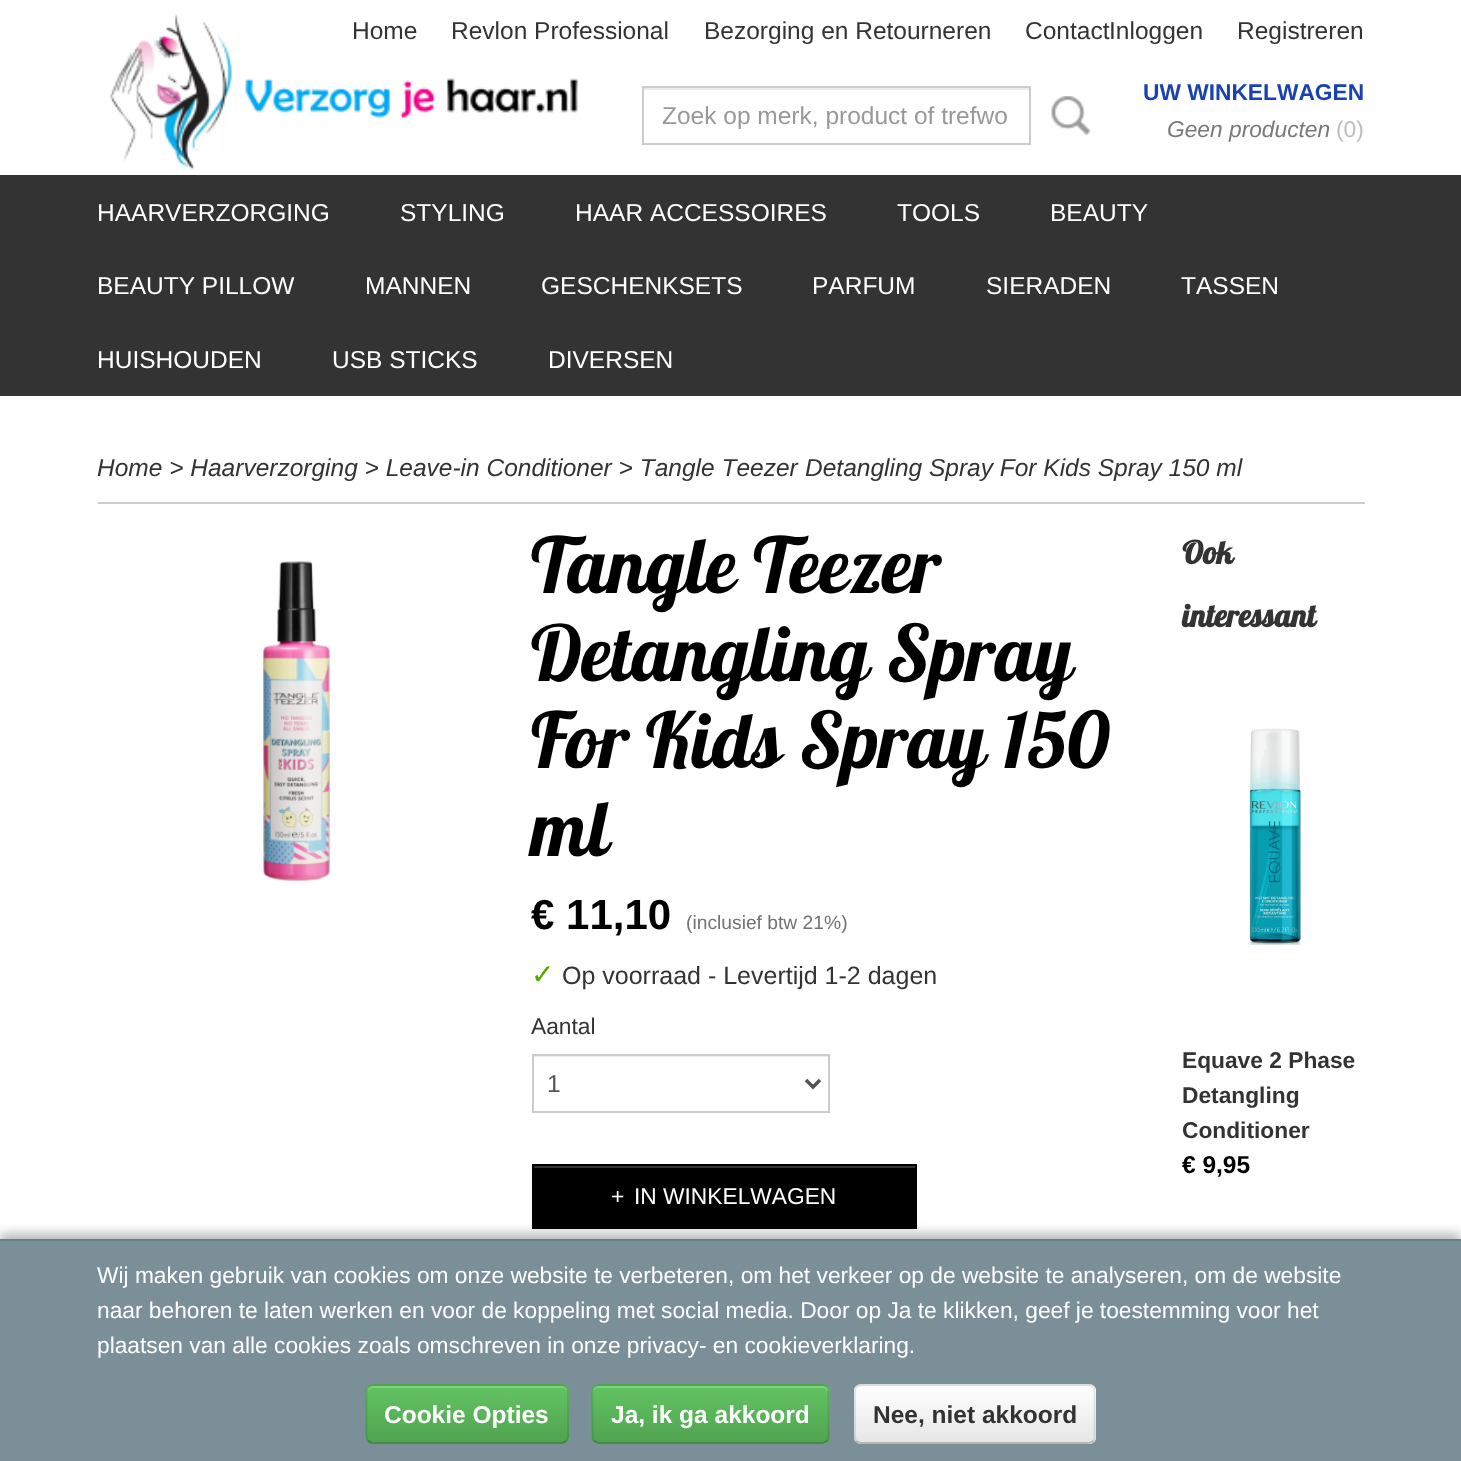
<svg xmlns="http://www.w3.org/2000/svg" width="1461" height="1461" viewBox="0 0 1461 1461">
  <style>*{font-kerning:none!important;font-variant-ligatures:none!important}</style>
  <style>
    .t1 { font: 24.5px Liberation Sans; fill: #333; }
    .t2 { font: bold 22.75px Liberation Sans; fill: #1941b0; }
    .t3 { font: italic 22.75px Liberation Sans; fill: #7a7a7a; }
    .t4 { font: 22.75px Liberation Sans; fill: #bdbdbd; }
    .t5 { font: 24.5px Liberation Sans; fill: #999; }
    .t6 { font: 24.5px Liberation Sans; fill: #fff; }
    .t7 { font: italic 24.5px Liberation Sans; fill: #333; }
    .t8 { font: 77px Lobster; fill: #000; }
    .t9 { font: bold 42px Liberation Sans; fill: #000; }
    .t10 { font: 19.25px Liberation Sans; fill: #737373; }
    .t11 { font: 28px DejaVu Sans; fill: #5ea600; }
    .t12 { font: 25px Liberation Sans; fill: #333; }
    .t13 { font: 22.75px Liberation Sans; fill: #333; }
    .t14 { font: 24.5px Liberation Sans; fill: #555; }
    .t15 { font: 22.75px Liberation Sans; fill: #fff; }
    .t16 { font: bold 31.5px Lobster; fill: #333; }
    .t17 { font: bold 22.75px Liberation Sans; fill: #333; }
    .t18 { font: bold 24.5px Liberation Sans; fill: #000; }
    .t19 { font: bold 24.5px Liberation Sans; fill: #fff; }
    .t20 { font: bold 24.5px Liberation Sans; fill: #333; }
  </style>
  <defs>
    <clipPath id="clip1"><rect x="366" y="1384" width="203" height="60" rx="7"/></clipPath>
    <linearGradient id="g1" gradientUnits="userSpaceOnUse" x1="467" y1="1386" x2="467" y2="1442"><stop offset="0" stop-color="#62c462"/><stop offset="1" stop-color="#51a351"/></linearGradient>
    <clipPath id="clip2"><rect x="592" y="1384" width="238" height="60" rx="7"/></clipPath>
    <linearGradient id="g2" gradientUnits="userSpaceOnUse" x1="711" y1="1386" x2="711" y2="1442"><stop offset="0" stop-color="#62c462"/><stop offset="1" stop-color="#51a351"/></linearGradient>
    <clipPath id="clip3"><rect x="854" y="1384" width="242" height="60" rx="7"/></clipPath>
    <linearGradient id="g3" gradientUnits="userSpaceOnUse" x1="975" y1="1386" x2="975" y2="1442"><stop offset="0" stop-color="#fff"/><stop offset="1" stop-color="#e6e6e6"/></linearGradient>
  </defs>
  <rect width="100%" height="100%" fill="#fff"/>
  <image x="110" y="14" width="468" height="155" href="images/1.png"/>
  <text x="352" y="39" class="t1">Home</text>
  <text x="451" y="39" class="t1">Revlon Professional</text>
  <text x="704" y="39" class="t1">Bezorging en Retourneren</text>
  <text x="1025" y="39" class="t1">Contact</text>
  <text x="1109" y="39" class="t1">Inloggen</text>
  <text x="1237" y="39" class="t1">Registreren</text>
  <text x="1143" y="100" class="t2">UW WINKELWAGEN</text>
  <text x="1167" y="137" class="t3">Geen producten</text>
  <text x="1336" y="137" class="t4">(0)</text>
  <rect x="644" y="88" width="385" height="2" fill="#ececec"/>
  <rect x="643" y="87" width="387" height="57" fill="none" stroke="#ccc" stroke-width="2"/>
  <text x="662" y="124" class="t5">Zoek op merk, product of trefwo</text>
  <image x="1051" y="96" width="39" height="39" href="images/2.png"/>
  <rect x="0" y="175" width="1461" height="221" fill="#333"/>
  <text x="97" y="221" class="t6">HAARVERZORGING</text>
  <text x="400" y="221" class="t6">STYLING</text>
  <text x="575" y="221" class="t6">HAAR ACCESSOIRES</text>
  <text x="897" y="221" class="t6">TOOLS</text>
  <text x="1050" y="221" class="t6">BEAUTY</text>
  <text x="97" y="294" class="t6">BEAUTY PILLOW</text>
  <text x="365" y="294" class="t6">MANNEN</text>
  <text x="541" y="294" class="t6">GESCHENKSETS</text>
  <text x="812" y="294" class="t6">PARFUM</text>
  <text x="986" y="294" class="t6">SIERADEN</text>
  <text x="1181" y="294" class="t6">TASSEN</text>
  <text x="97" y="368" class="t6">HUISHOUDEN</text>
  <text x="332" y="368" class="t6">USB STICKS</text>
  <text x="548" y="368" class="t6">DIVERSEN</text>
  <rect x="98" y="502" width="1267" height="2" fill="#ccc"/>
  <text x="97" y="476" class="t7">Home &gt; Haarverzorging &gt; Leave-in Conditioner &gt; Tangle Teezer</text>
  <text x="805" y="476" class="t7">Detangling Spray For Kids Spray 150 ml</text>
  <image x="261" y="561" width="70" height="320" href="images/3.png"/>
  <text x="531" y="593" class="t8">Tangle Teezer</text>
  <text x="531" y="681" class="t8">Detangling Spray</text>
  <text x="531" y="768" class="t8">For Kids Spray 150</text>
  <text x="531" y="856" class="t8">ml</text>
  <text x="531" y="929" class="t9">€ 11,10</text>
  <text x="686" y="929" class="t10">(inclusief btw 21%)</text>
  <text x="531" y="984" class="t11">✓</text>
  <text x="562" y="984" class="t12">Op voorraad - Levertijd 1-2 dagen</text>
  <text x="531" y="1034" class="t13">Aantal</text>
  <rect x="534" y="1056" width="294" height="1" fill="#ececec"/>
  <rect x="533" y="1055" width="296" height="57" fill="none" stroke="#ccc" stroke-width="2"/>
  <path d="M806 1080L813 1087L820 1080" fill="none" stroke="#555" stroke-width="3.5"/>
  <text x="547" y="1092" class="t14">1</text>
  <rect x="532" y="1166" width="385" height="64" fill="#0000000d" filter="blur(2px)"/>
  <rect x="532" y="1164" width="385" height="65" fill="#000"/>
  <rect x="534" y="1166" width="381" height="2" fill="#333"/>
  <text x="611" y="1204" class="t15">+</text>
  <text x="634" y="1204" class="t15">IN WINKELWAGEN</text>
  <text x="1182" y="564" class="t16">Ook</text>
  <text x="1182" y="627" class="t16">interessant</text>
  <image x="1249" y="728" width="52" height="217" href="images/4.png"/>
  <text x="1182" y="1068" class="t17">Equave 2 Phase</text>
  <text x="1182" y="1103" class="t17">Detangling</text>
  <text x="1182" y="1138" class="t17">Conditioner</text>
  <text x="1182" y="1173" class="t18">€ 9,95</text>
  <rect x="0" y="1234" width="1461" height="222" fill="#0000004d" filter="blur(6px)"/>
  <rect x="0" y="1241" width="1461" height="220" fill="#7a8f98"/>
  <rect x="0" y="1239" width="1461" height="2" fill="#697e87"/>
  <text x="97" y="1283" class="t15">Wij maken gebruik van cookies om onze website te verbeteren, om het verkeer op de website te analyseren, om de website</text>
  <text x="97" y="1318" class="t15">naar behoren te laten werken en voor de koppeling met social media. Door op Ja te klikken, geef je toestemming voor het</text>
  <text x="97" y="1353" class="t15">plaatsen van alle cookies zoals omschreven in onze privacy- en cookieverklaring.</text>
  <rect x="366" y="1384" width="203" height="60" rx="7" fill="#5bb75b"/>
  <g clip-path="url(#clip1)">
    <rect x="366" y="1386" width="203" height="56" fill="url(#g1)"/>
  </g>
  <path d="M373 1388H562C565 1388 567 1390 567 1393V1391C567 1388 565 1386 562 1386H373C370 1386 368 1388 368 1391V1393C368 1390 370 1388 373 1388Z" fill="#ffffff33"/>
  <path d="M566 1441C565 1442 563.5 1443 562 1443H373C371 1443 369.5 1442 368.5 1441" fill="none" stroke="#00000040" stroke-width="1.8"/>
  <path d="M368.5 1441C367.5 1440 366.5 1438.5 366.5 1437V1391C366.5 1389.5 367.5 1388 368.5 1387C369.5 1386 371 1385 373 1385H562C563.5 1385 565 1386 566 1387C567 1388 568 1389.5 568 1391V1437C568 1438.5 567 1440 566 1441" fill="none" stroke="#0000001a" stroke-width="1.8"/>
  <text x="384" y="1423" class="t19">Cookie Opties</text>
  <rect x="592" y="1384" width="238" height="60" rx="7" fill="#5bb75b"/>
  <g clip-path="url(#clip2)">
    <rect x="592" y="1386" width="238" height="56" fill="url(#g2)"/>
  </g>
  <path d="M598 1388H822C825 1388 828 1390 828 1393C828 1390 828 1387 824 1386H597C593 1387 593 1390 593 1393C593 1390 596 1388 598 1388Z" fill="#ffffff33"/>
  <path d="M827 1441C825.5 1442 824 1443 822.5 1443H598.5C597 1443 595.5 1442 594 1441" fill="none" stroke="#00000040" stroke-width="1.8"/>
  <path d="M594 1441C593 1440 592.5 1438.5 592.5 1437V1391C592.5 1389.5 593 1388 594 1387C595.5 1386 597 1385 598.5 1385H822.5C824 1385 825.5 1386 827 1387C828 1388 828.5 1389.5 828.5 1391V1437C828.5 1438.5 828 1440 827 1441" fill="none" stroke="#0000001a" stroke-width="1.8"/>
  <text x="611" y="1423" class="t19">Ja, ik ga akkoord</text>
  <rect x="854" y="1384" width="242" height="60" rx="7" fill="#f5f5f5"/>
  <g clip-path="url(#clip3)">
    <rect x="854" y="1386" width="242" height="56" fill="url(#g3)"/>
  </g>
  <path d="M1093 1441C1091.5 1442 1090 1443 1088.5 1443H861C859.5 1443 858 1442 856.5 1441" fill="none" stroke="#00000040" stroke-width="1.8"/>
  <path d="M856.5 1441C855.5 1440 855 1438.5 855 1437V1391C855 1389.5 855.5 1388 856.5 1387C858 1386 859.5 1385 861 1385H1088.5C1090 1385 1091.5 1386 1093 1387C1094 1388 1094.5 1389.5 1094.5 1391V1437C1094.5 1438.5 1094 1440 1093 1441" fill="none" stroke="#0000001a" stroke-width="1.8"/>
  <text x="873" y="1423" class="t20">Nee, niet akkoord</text>
</svg>
